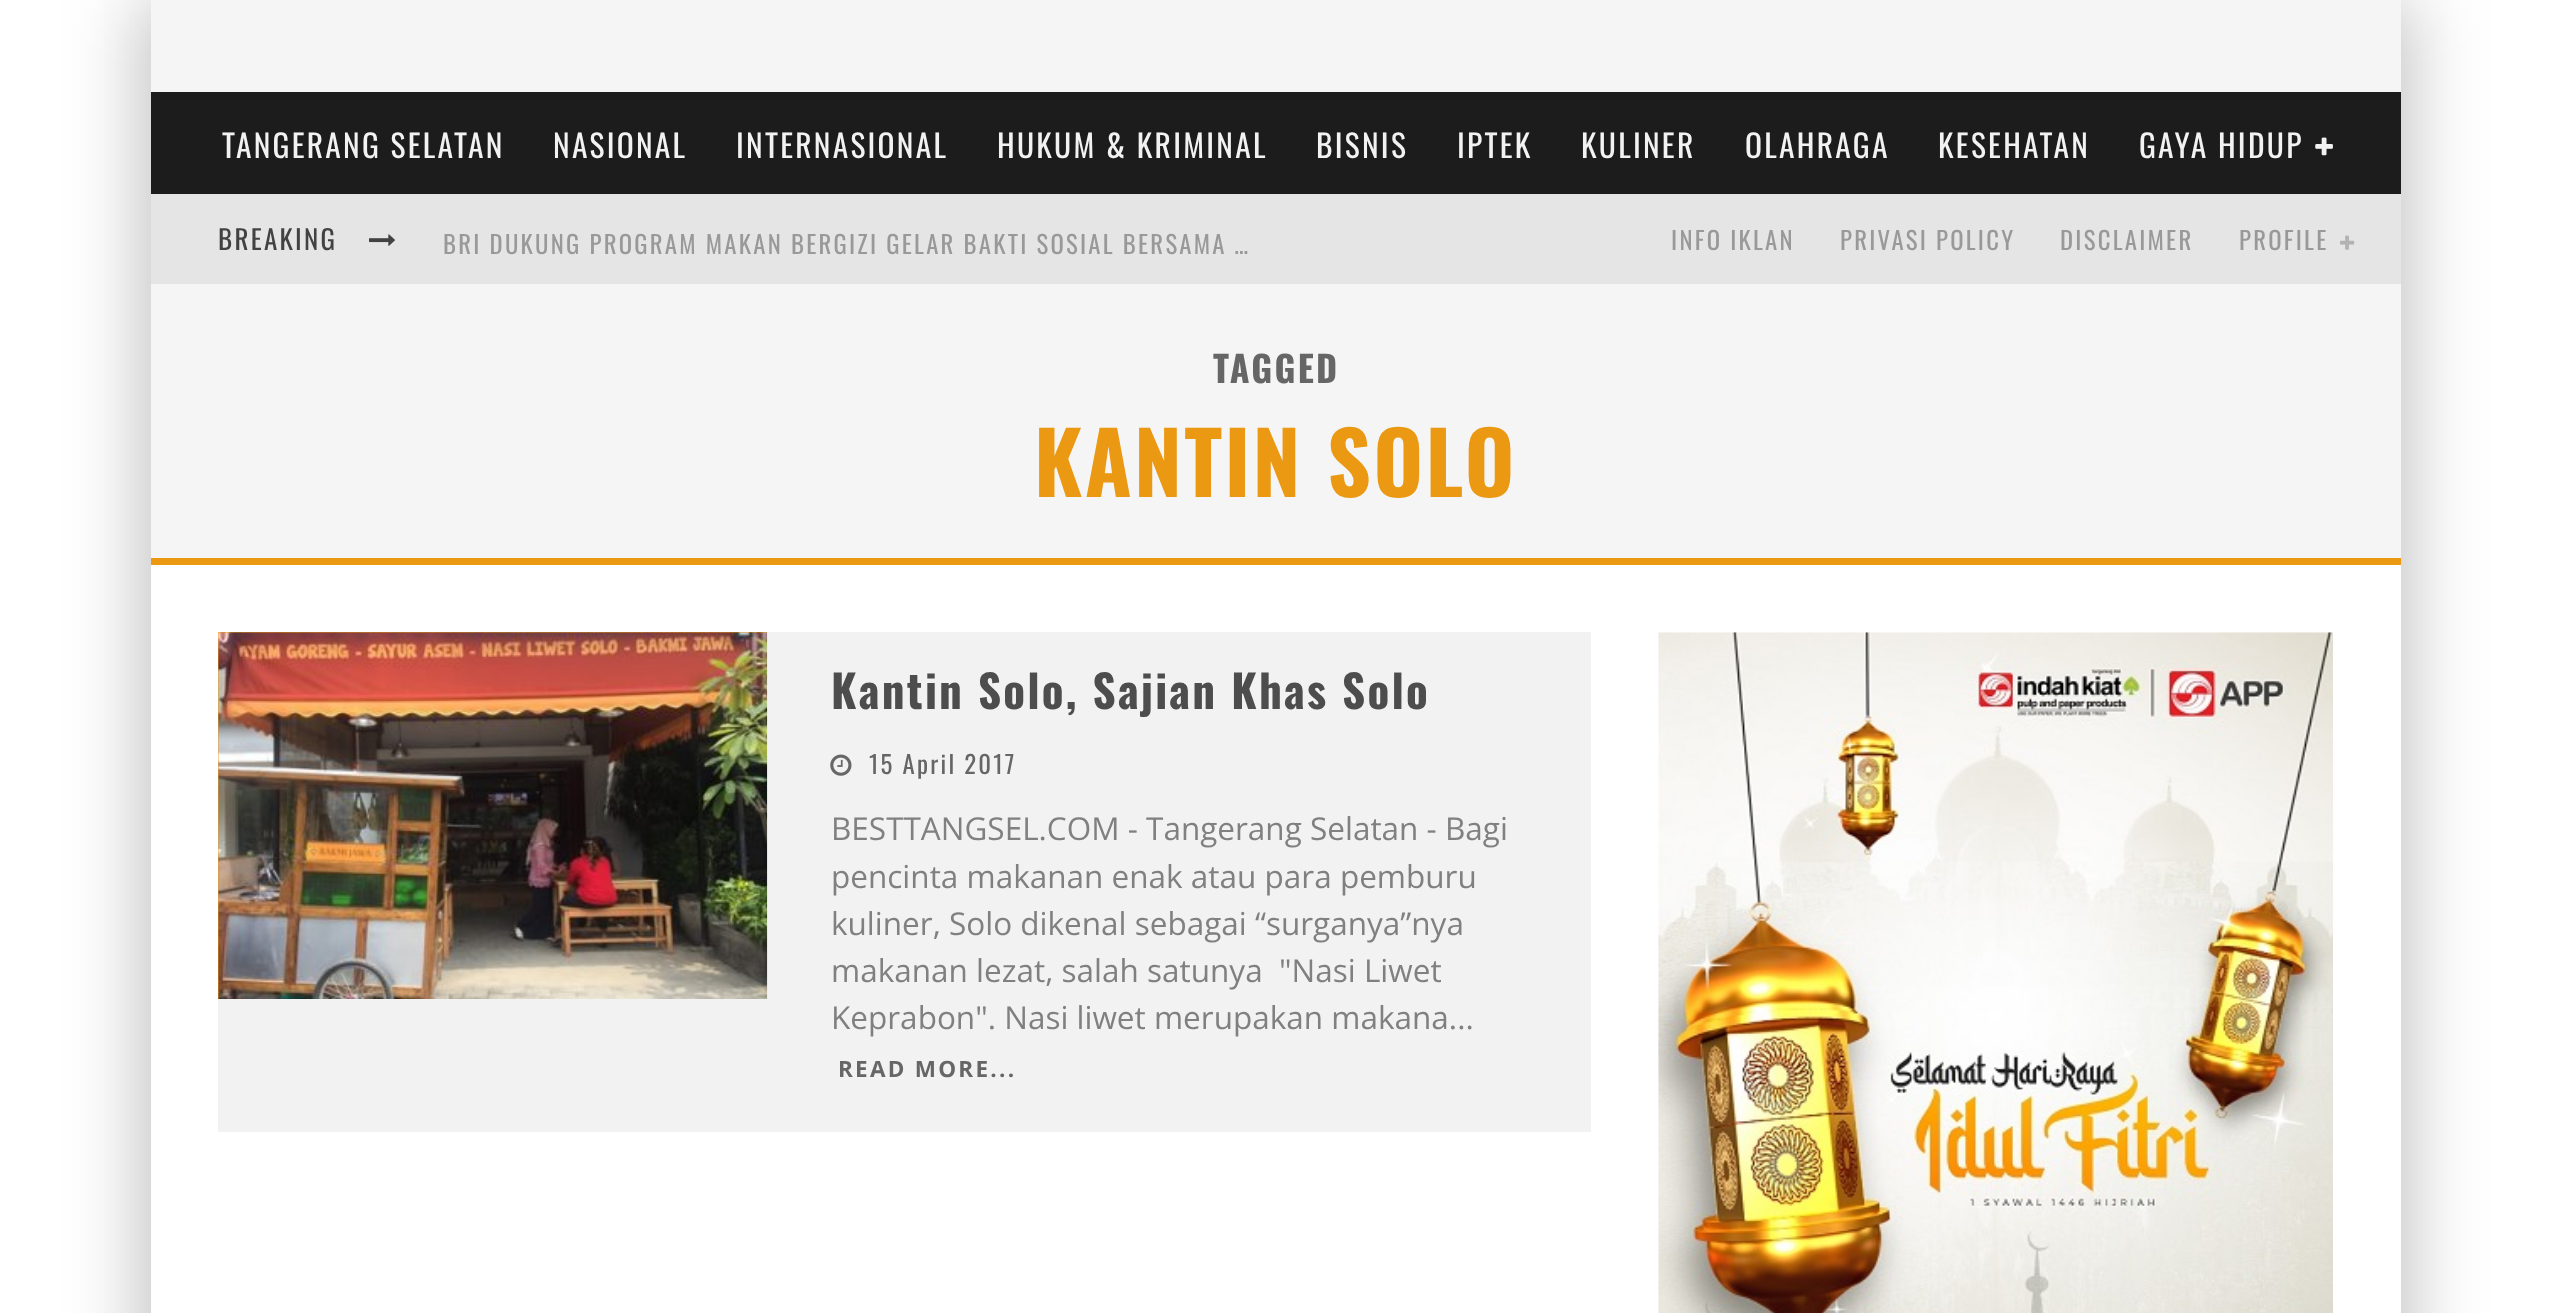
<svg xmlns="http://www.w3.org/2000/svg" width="2550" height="1313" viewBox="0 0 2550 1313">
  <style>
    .t1 { font: 31.5px Oswald; letter-spacing: 2.25px; fill: #f2f2f2; }
    .t2 { font: 27px Oswald; letter-spacing: 2.25px; fill: #424242; }
    .t3 { font: 24.75px Oswald; letter-spacing: 2.25px; fill: #999; }
    .t4 { font: bold 36px Oswald; letter-spacing: 2.25px; fill: #666; }
    .t5 { font: bold 85.5px Oswald; letter-spacing: 2.25px; fill: #eb9812; }
    .t6 { font: bold 45px Oswald; letter-spacing: 2.25px; fill: #4d4d4d; }
    .t7 { font: 24.75px Oswald; letter-spacing: 2.25px; fill: #666; }
    .t8 { font: 31.5px Open Sans; fill: #808080; }
    .t9 { font: bold 22.5px Open Sans; letter-spacing: 2.25px; fill: #666; }
  </style>
  <rect width="100%" height="100%" fill="#fff"/>
  <rect x="128" y="0" width="2250" height="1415" fill="#00000026" filter="blur(34px)"/>
  <rect x="173" y="0" width="2250" height="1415" fill="#00000026" filter="blur(34px)"/>
  <rect x="151" y="0" width="2250" height="92" fill="#f5f5f5"/>
  <rect x="151" y="92" width="2250" height="102" fill="#1c1c1c"/>
  <text x="222" y="158" class="t1">TANGERANG SELATAN</text>
  <text x="553" y="158" class="t1">NASIONAL</text>
  <text x="736" y="158" class="t1">INTERNASIONAL</text>
  <text x="997" y="158" class="t1">HUKUM &amp; KRIMINAL</text>
  <text x="1316" y="158" class="t1">BISNIS</text>
  <text x="1457" y="158" class="t1">IPTEK</text>
  <text x="1581" y="158" class="t1">KULINER</text>
  <text x="1745" y="158" class="t1">OLAHRAGA</text>
  <text x="1938" y="158" class="t1">KESEHATAN</text>
  <text x="2139" y="158" class="t1">GAYA HIDUP</text>
  <image x="2315" y="137" width="18" height="19" href="images/1.png"/>
  <rect x="151" y="194" width="2250" height="90" fill="#e5e5e5"/>
  <text x="218" y="250" class="t2">BREAKING</text>
  <image x="369" y="234" width="26" height="12" href="images/2.png"/>
  <text x="443" y="254" class="t3">BRI DUKUNG PROGRAM MAKAN BERGIZI GELAR BAKTI SOSIAL BERSAMA …</text>
  <text x="1671" y="250" class="t3">INFO IKLAN</text>
  <text x="1840" y="250" class="t3">PRIVASI POLICY</text>
  <text x="2060" y="250" class="t3">DISCLAIMER</text>
  <text x="2239" y="250" class="t3">PROFILE</text>
  <image x="2340" y="235" width="15" height="15" href="images/3.png"/>
  <rect x="151" y="565" width="2250" height="748" fill="#fff"/>
  <rect x="151" y="284" width="2250" height="274" fill="#f5f5f5"/>
  <rect x="151" y="558" width="2250" height="7" fill="#eb9812"/>
  <text x="1213" y="383" class="t4">TAGGED</text>
  <text x="1034" y="497" class="t5">KANTIN SOLO</text>
  <rect x="218" y="632" width="1373" height="500" fill="#f2f2f2"/>
  <rect x="218" y="632" width="549" height="367" fill="#eb9812"/>
  <image x="218" y="632" width="550" height="367" href="images/4.png"/>
  <text x="831" y="709" class="t6">Kantin Solo, Sajian Khas Solo</text>
  <image x="830" y="754" width="22" height="22" href="images/5.png"/>
  <text x="869" y="774" class="t7">15 April 2017</text>
  <text x="831" y="840" class="t8">BESTTANGSEL.COM - Tangerang Selatan - Bagi</text>
  <text x="831" y="888" class="t8">pencinta makanan enak atau para pemburu</text>
  <text x="831" y="935" class="t8">kuliner, Solo dikenal sebagai “surganya”nya</text>
  <text x="831" y="982" class="t8" xml:space="preserve">makanan lezat, salah satunya  "Nasi Liwet</text>
  <text x="831" y="1029" class="t8">Keprabon". Nasi liwet merupakan makana...</text>
  <text x="838" y="1077" class="t9">READ MORE...</text>
  <image x="1658" y="632" width="675" height="681" href="images/6.png"/>
</svg>
